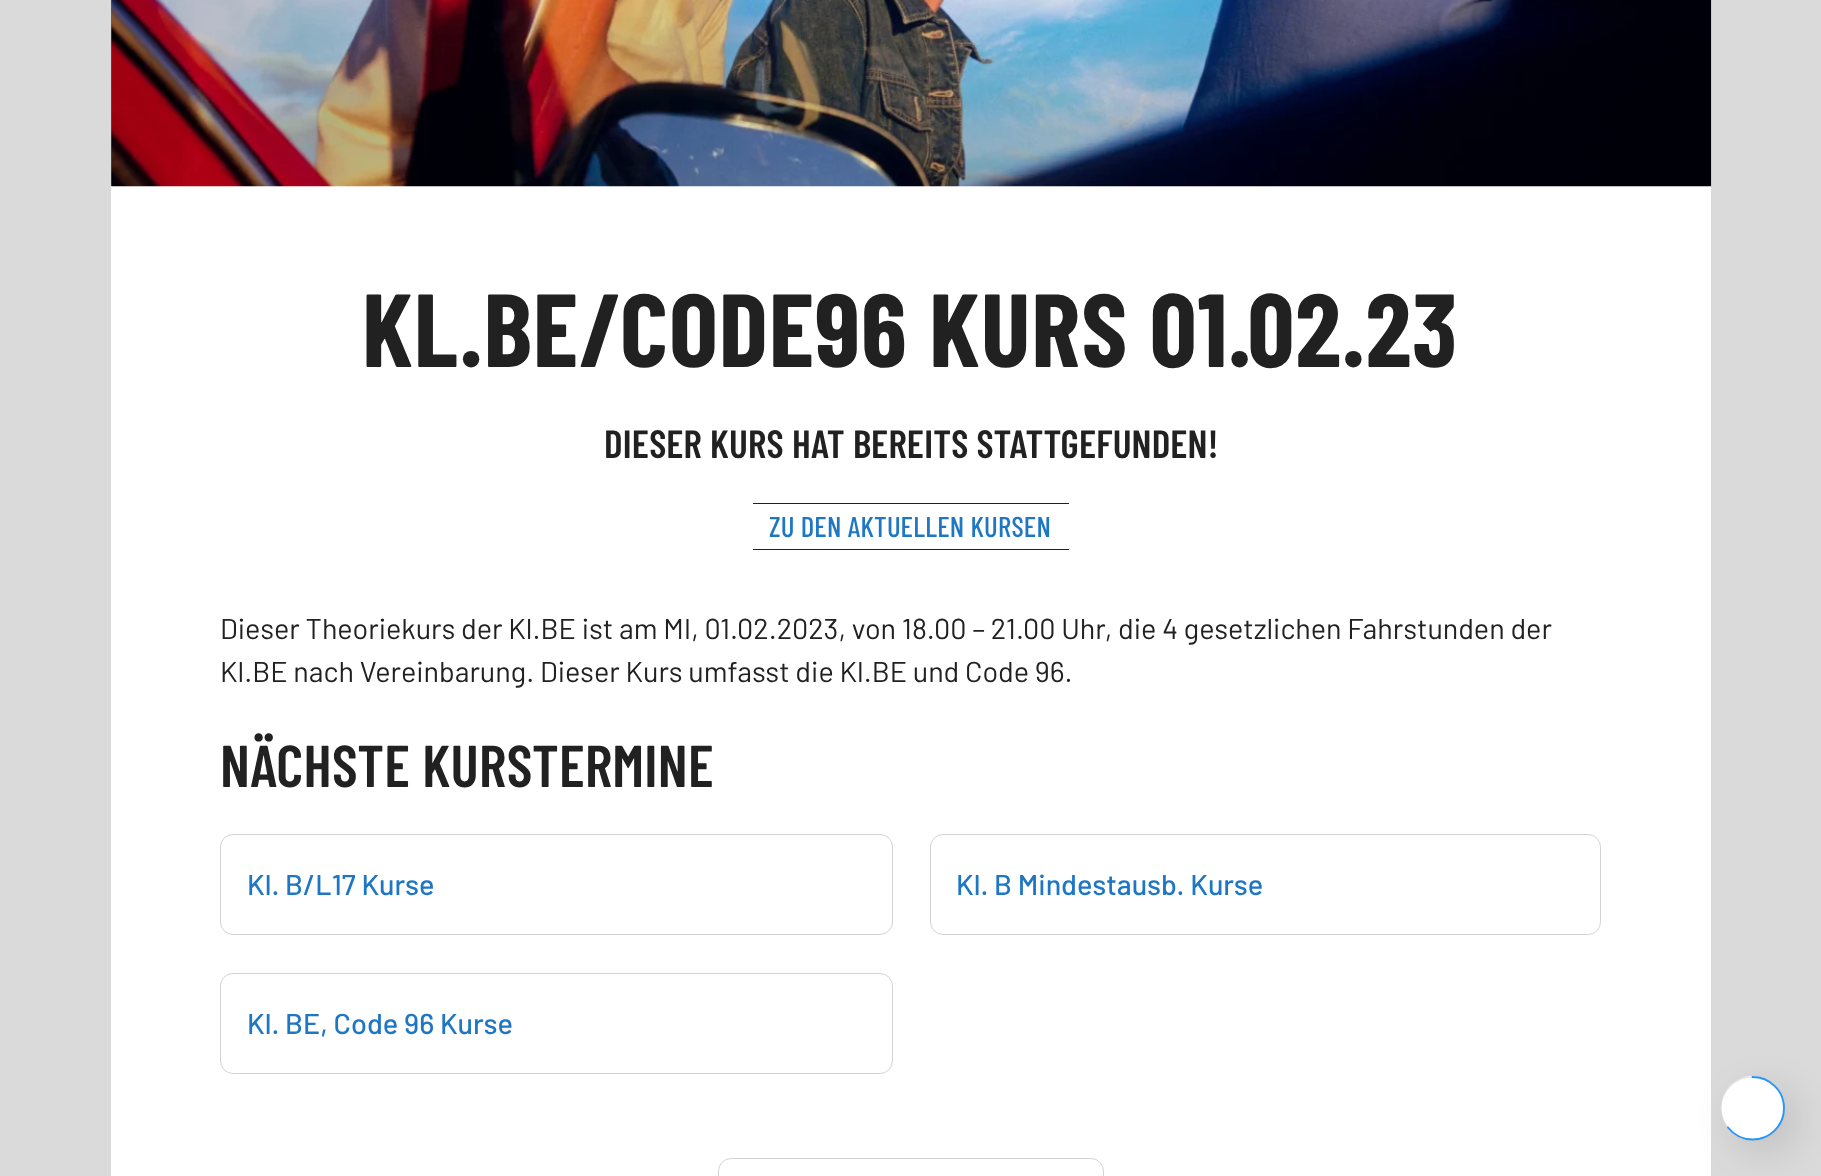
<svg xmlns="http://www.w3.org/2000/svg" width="1821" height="1176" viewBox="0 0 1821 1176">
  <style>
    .t1 { font: bold 103.6px Barlow Condensed; letter-spacing: 0.9px; fill: #212121; }
    .t2 { font: 600 39.4px Barlow Condensed; letter-spacing: 0.2px; fill: #212121; }
    .t3 { font: 500 28.75px Barlow Condensed; letter-spacing: 0.25px; fill: #1f77c4; }
    .t4 { font: 28.75px Barlow; fill: #212121; }
    .t5 { font: 600 59px Barlow Condensed; letter-spacing: 0.25px; fill: #212121; }
    .t6 { font: 500 28.75px Barlow; fill: #1f77c4; }
  </style>
  <rect width="100%" height="100%" fill="#dadada"/>
  <rect x="111" y="0" width="1" height="186" fill="#1f77c4"/>
  <rect x="111" y="186" width="1600" height="990" fill="#fff"/>
  <image x="111" y="0" width="1601" height="187" href="images/1.png"/>
  <text x="362" y="367" class="t1">KL.BE/CODE96 KURS 01.02.23</text>
  <text x="604" y="458" class="t2">DIESER KURS HAT BEREITS STATTGEFUNDEN!</text>
  <rect x="753" y="503" width="316" height="1" fill="#212121"/>
  <rect x="753" y="549" width="316" height="1" fill="#212121"/>
  <text x="769" y="537" class="t3">ZU DEN AKTUELLEN KURSEN</text>
  <text x="220" y="639" class="t4">Dieser Theoriekurs der Kl.BE ist am MI, 01.02.2023, von 18.00 – 21.00 Uhr, die 4 gesetzlichen Fahrstunden der</text>
  <text x="220" y="682" class="t4">Kl.BE nach Vereinbarung. Dieser Kurs umfasst die Kl.BE und Code 96.</text>
  <text x="220" y="787" class="t5">NÄCHSTE KURSTERMINE</text>
  <rect x="220.5" y="834.5" width="672" height="100" rx="12.5" fill="none" stroke="#d3d3d3"/>
  <text x="247" y="895" class="t6">Kl. B/L17 Kurse</text>
  <rect x="930.5" y="834.5" width="670" height="100" rx="12.5" fill="none" stroke="#d3d3d3"/>
  <text x="956" y="895" class="t6">Kl. B Mindestausb. Kurse</text>
  <rect x="220.5" y="973.5" width="672" height="100" rx="12.5" fill="none" stroke="#d3d3d3"/>
  <text x="247" y="1034" class="t6">Kl. BE, Code 96 Kurse</text>
  <rect x="718.5" y="1158.5" width="385" height="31" rx="12.5" fill="none" stroke="#d3d3d3"/>
  <rect x="1734" y="1089" width="62" height="62" rx="31" fill="#0000001f" filter="blur(19px)"/>
  <circle cx="1752.5" cy="1107.5" r="31.5" fill="#fff"/>
  <path d="M1752.5 1077C1770 1077 1784 1091 1784 1108C1784 1125.5 1770 1139.5 1752.5 1139.5C1735 1139.5 1721 1125.5 1721 1108C1721 1091 1735 1077 1752.5 1077" fill="none" stroke="#d9d9d9cc" stroke-width="1.2"/>
  <path d="M1752.5 1077C1770 1077 1784 1091 1784 1108C1784 1125.5 1770 1139.5 1752.5 1139.5C1742.5 1139.5 1734 1135 1728 1127.5" fill="none" stroke="#2896f7" stroke-width="1.9" stroke-linecap="round"/>
</svg>
